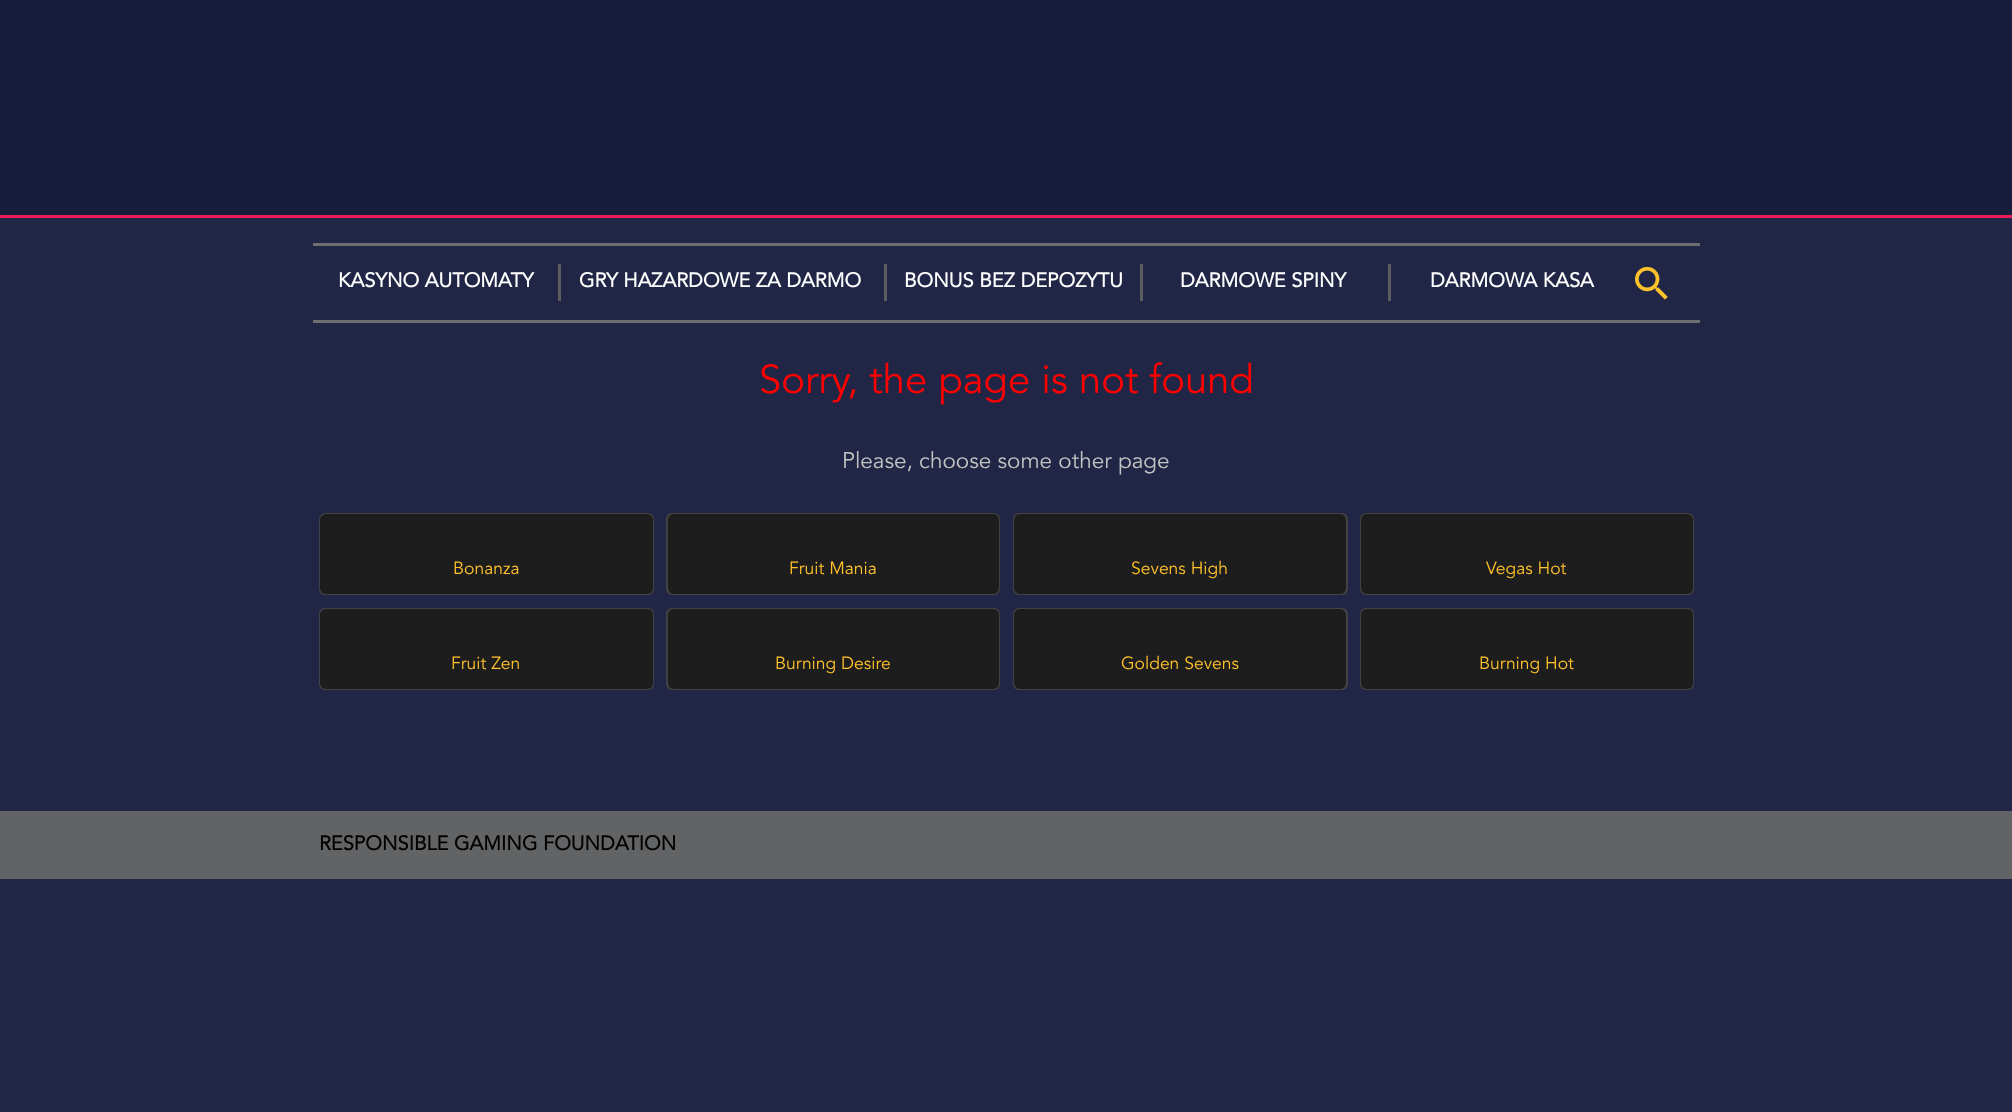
<svg xmlns="http://www.w3.org/2000/svg" width="2012" height="1112" viewBox="0 0 2012 1112">
  <style>
    .t1 { font: bold 20px Avenir; fill: #fff; }
    .t2 { font: 40px Avenir; fill: #f00; }
    .t3 { font: 22.5px Avenir; fill: #c4c4c4; }
    .t4 { font: 17.5px Avenir; fill: #ffc22a; }
    .t5 { font: bold 20px Avenir; fill: #010101; }
  </style>
  <rect width="100%" height="100%" fill="#222646"/>
  <rect x="0" y="0" width="2012" height="215" fill="#191d3c"/>
  <rect x="0" y="215" width="2012" height="3" fill="#ef1a59"/>
  <rect x="313" y="243" width="1387" height="3" fill="#6c6e6f"/>
  <rect x="313" y="320" width="1387" height="3" fill="#6c6e6f"/>
  <text x="338" y="287" class="t1">KASYNO AUTOMATY</text>
  <rect x="558" y="264" width="3" height="37" fill="#5e5d5d"/>
  <text x="579" y="287" class="t1">GRY HAZARDOWE ZA DARMO</text>
  <rect x="884" y="264" width="3" height="37" fill="#5e5d5d"/>
  <text x="904" y="287" class="t1">BONUS BEZ DEPOZYTU</text>
  <rect x="1140" y="264" width="3" height="37" fill="#5e5d5d"/>
  <text x="1180" y="287" class="t1">DARMOWE SPINY</text>
  <rect x="1388" y="264" width="3" height="37" fill="#5e5d5d"/>
  <text x="1430" y="287" class="t1">DARMOWA KASA</text>
  <image x="1635" y="266" width="33" height="34" href="images/1.png"/>
  <text x="759" y="393" class="t2">Sorry, the page is not found</text>
  <text x="842" y="468" class="t3">Please, choose some other page</text>
  <rect x="319" y="513" width="335" height="82" rx="6" fill="#424242"/>
  <rect x="320" y="514" width="333" height="80" rx="6" fill="#1e1d1d"/>
  <text x="453" y="574" class="t4">Bonanza</text>
  <rect x="666" y="513" width="334" height="82" rx="6" fill="#424242"/>
  <rect x="668" y="514" width="331" height="80" rx="6" fill="#1e1d1d"/>
  <text x="789" y="574" class="t4">Fruit Mania</text>
  <rect x="1013" y="513" width="335" height="82" rx="6" fill="#424242"/>
  <rect x="1014" y="514" width="332" height="80" rx="6" fill="#1e1d1d"/>
  <text x="1131" y="574" class="t4">Sevens High</text>
  <rect x="1360" y="513" width="334" height="82" rx="6" fill="#424242"/>
  <rect x="1361" y="514" width="332" height="80" rx="6" fill="#1e1d1d"/>
  <text x="1486" y="574" class="t4">Vegas Hot</text>
  <rect x="319" y="608" width="335" height="82" rx="6" fill="#424242"/>
  <rect x="320" y="609" width="333" height="80" rx="6" fill="#1e1d1d"/>
  <text x="451" y="669" class="t4">Fruit Zen</text>
  <rect x="666" y="608" width="334" height="82" rx="6" fill="#424242"/>
  <rect x="668" y="609" width="331" height="80" rx="6" fill="#1e1d1d"/>
  <text x="775" y="669" class="t4">Burning Desire</text>
  <rect x="1013" y="608" width="335" height="82" rx="6" fill="#424242"/>
  <rect x="1014" y="609" width="332" height="80" rx="6" fill="#1e1d1d"/>
  <text x="1121" y="669" class="t4">Golden Sevens</text>
  <rect x="1360" y="608" width="334" height="82" rx="6" fill="#424242"/>
  <rect x="1361" y="609" width="332" height="80" rx="6" fill="#1e1d1d"/>
  <text x="1479" y="669" class="t4">Burning Hot</text>
  <rect x="0" y="811" width="2012" height="68" fill="#626365"/>
  <text x="319" y="850" class="t5">RESPONSIBLE GAMING FOUNDATION</text>
</svg>
